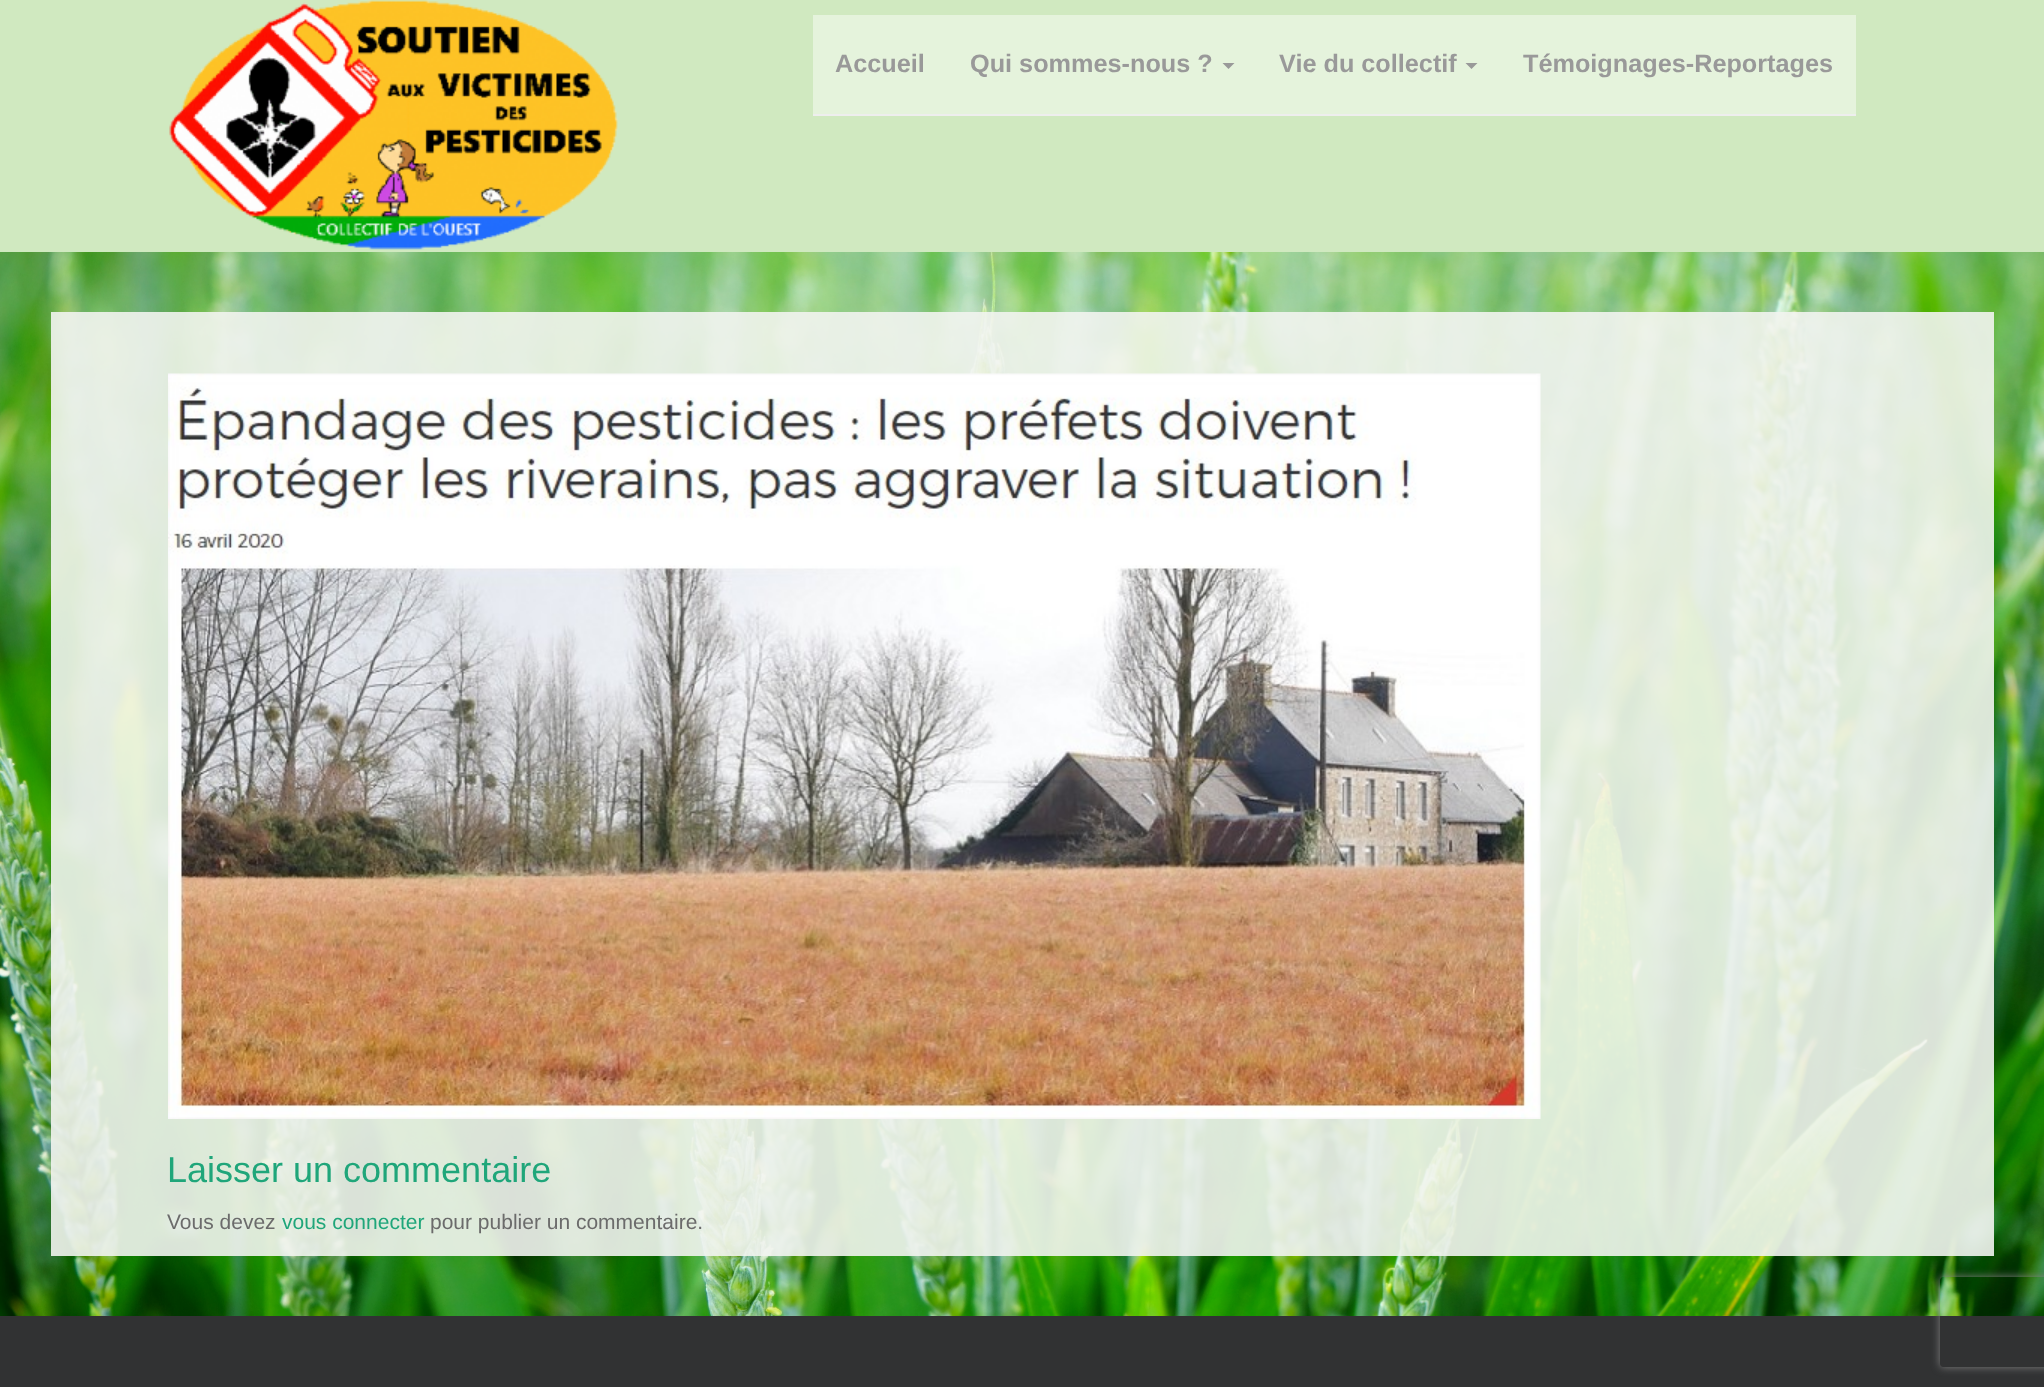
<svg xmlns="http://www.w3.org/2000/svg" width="2044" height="1387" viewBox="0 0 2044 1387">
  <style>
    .t1 { font: bold 25.25px Liberation Sans; fill: #999; }
    .t2 { font: 36px Liberation Sans; fill: #1fa67a; }
    .t3 { font: 21px Liberation Sans; fill: #6b6b6b; }
    .t4 { font: 21px Liberation Sans; fill: #1fa67a; }
  </style>
  <defs>
    <clipPath id="clip1"><path d="M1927 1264H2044V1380H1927ZM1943 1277H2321C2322.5 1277 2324 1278.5 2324 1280V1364C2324 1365.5 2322.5 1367 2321 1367H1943C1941.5 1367 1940 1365.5 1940 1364V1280C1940 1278.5 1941.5 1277 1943 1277Z" clip-rule="evenodd"/></clipPath>
  </defs>
  <rect width="100%" height="100%" fill="#fff"/>
  <image x="0" y="252" width="2044" height="1064" href="images/1.png"/>
  <rect x="0" y="0" width="2044" height="252" fill="#d0e9c0"/>
  <image x="169" y="0" width="449" height="250" href="images/2.png"/>
  <rect x="813" y="15" width="1043" height="99" fill="#e5f3dc"/>
  <rect x="813" y="114" width="1043" height="2" fill="#eee"/>
  <text x="835" y="72" class="t1">Accueil</text>
  <text x="970" y="72" class="t1">Qui sommes-nous ?</text>
  <path d="M1222.5 63H1234.5L1228.5 69Z" fill="#999"/>
  <text x="1279" y="72" class="t1">Vie du collectif</text>
  <path d="M1465.5 63H1477.5L1471.5 69Z" fill="#999"/>
  <text x="1523" y="72" class="t1">Témoignages-Reportages</text>
  <rect x="51" y="312" width="1943" height="944" fill="#f2f4efe6"/>
  <image x="168" y="373" width="1373" height="746" href="images/3.png"/>
  <text x="167" y="1182" class="t2">Laisser un commentaire</text>
  <text x="167" y="1229" class="t3">Vous devez</text>
  <text x="282" y="1229" class="t4">vous connecter</text>
  <text x="430" y="1229" class="t3">pour publier un commentaire.</text>
  <rect x="0" y="1316" width="2044" height="71" fill="#313233"/>
  <g clip-path="url(#clip1)">
    <rect x="1940" y="1277" width="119" height="90" rx="3" fill="#808080" filter="blur(4px)"/>
  </g>
</svg>
